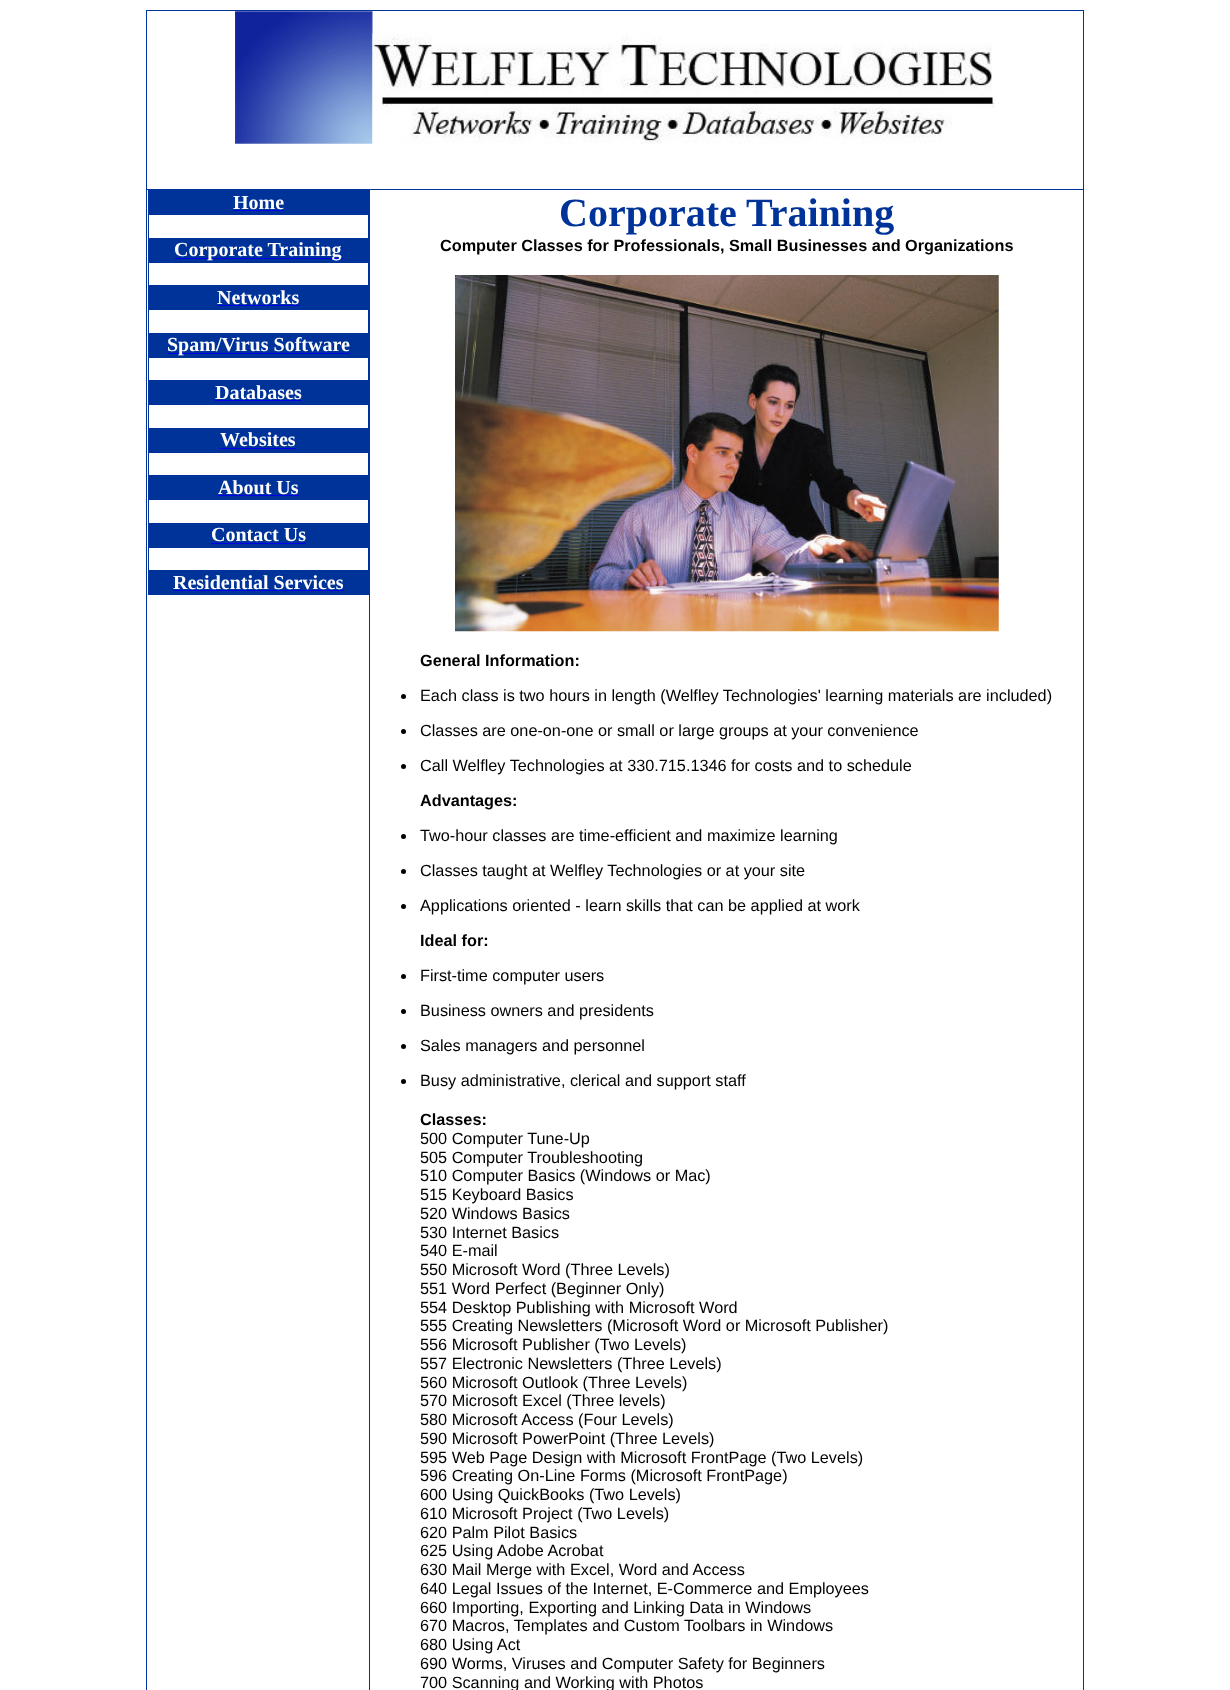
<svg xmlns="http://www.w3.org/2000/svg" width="1230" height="1690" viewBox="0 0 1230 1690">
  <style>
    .t1 { font: bold 20px Liberation Serif; fill: #fff; }
    .t2 { font: bold 40px Liberation Serif; fill: #039; }
    .t3 { font: bold 16.25px Liberation Sans; fill: #000; }
    .t4 { font: 16.25px Liberation Sans; fill: #000; }
  </style>
  <rect width="100%" height="100%" fill="#fff"/>
  <rect x="146" y="10" width="938" height="1" fill="#039"/>
  <rect x="1083" y="10" width="1" height="1680" fill="#039"/>
  <rect x="146" y="10" width="1" height="1680" fill="#039"/>
  <image x="235" y="11" width="138" height="133" href="images/1.png"/>
  <image x="372" y="33" width="623" height="111" href="images/2.png"/>
  <rect x="369" y="189" width="715" height="1" fill="#039"/>
  <rect x="369" y="189" width="1" height="1501" fill="#039"/>
  <rect x="146" y="189" width="224" height="1" fill="#039"/>
  <rect x="148" y="190" width="221" height="405" fill="#039"/>
  <text x="233" y="209" class="t1">Home</text>
  <rect x="233" y="210" width="51" height="1" fill="#00e"/>
  <rect x="149" y="215" width="219" height="23" fill="#fff"/>
  <rect x="175" y="258" width="168" height="1" fill="#00e"/>
  <text x="174" y="256" class="t1">Corporate Training</text>
  <rect x="149" y="263" width="219" height="22" fill="#fff"/>
  <text x="217" y="304" class="t1">Networks</text>
  <rect x="218" y="305" width="82" height="1" fill="#00e"/>
  <rect x="149" y="310" width="219" height="23" fill="#fff"/>
  <rect x="168" y="353" width="182" height="1" fill="#00e"/>
  <text x="167" y="351" class="t1">Spam/Virus Software</text>
  <rect x="149" y="358" width="219" height="22" fill="#fff"/>
  <text x="215" y="399" class="t1">Databases</text>
  <rect x="215" y="400" width="86" height="1" fill="#00e"/>
  <rect x="149" y="405" width="219" height="23" fill="#fff"/>
  <text x="220" y="446" class="t1">Websites</text>
  <rect x="220" y="448" width="76" height="1" fill="#00e"/>
  <rect x="149" y="453" width="219" height="22" fill="#fff"/>
  <text x="218" y="494" class="t1">About Us</text>
  <rect x="218" y="495" width="81" height="1" fill="#00e"/>
  <rect x="149" y="500" width="219" height="23" fill="#fff"/>
  <text x="211" y="541" class="t1">Contact Us</text>
  <rect x="211" y="543" width="95" height="1" fill="#00e"/>
  <rect x="149" y="548" width="219" height="22" fill="#fff"/>
  <text x="173" y="589" class="t1">Residential Services</text>
  <rect x="173" y="590" width="171" height="1" fill="#00e"/>
  <text x="559" y="226" class="t2">Corporate Training</text>
  <text x="440" y="251" class="t3">Computer Classes for Professionals, Small Businesses and Organizations</text>
  <image x="455" y="275" width="544" height="357" href="images/3.png"/>
  <text x="420" y="666" class="t3">General Information:</text>
  <circle cx="403.5" cy="696.5" r="2.5" fill="#000"/>
  <text x="420" y="701" class="t4">Each class is two hours in length (Welfley Technologies' learning materials are included)</text>
  <circle cx="403.5" cy="731.5" r="2.5" fill="#000"/>
  <text x="420" y="736" class="t4">Classes are one-on-one or small or large groups at your convenience</text>
  <circle cx="403.5" cy="766.5" r="2.5" fill="#000"/>
  <text x="420" y="771" class="t4">Call Welfley Technologies at 330.715.1346 for costs and to schedule</text>
  <text x="420" y="806" class="t3">Advantages:</text>
  <circle cx="403.5" cy="836.5" r="2.5" fill="#000"/>
  <text x="420" y="841" class="t4">Two-hour classes are time-efficient and maximize learning</text>
  <circle cx="403.5" cy="871.5" r="2.5" fill="#000"/>
  <text x="420" y="876" class="t4">Classes taught at Welfley Technologies or at your site</text>
  <circle cx="403.5" cy="906.5" r="2.5" fill="#000"/>
  <text x="420" y="911" class="t4">Applications oriented - learn skills that can be applied at work</text>
  <text x="420" y="946" class="t3">Ideal for:</text>
  <circle cx="403.5" cy="976.5" r="2.5" fill="#000"/>
  <text x="420" y="981" class="t4">First-time computer users</text>
  <circle cx="403.5" cy="1011.5" r="2.5" fill="#000"/>
  <text x="420" y="1016" class="t4">Business owners and presidents</text>
  <circle cx="403.5" cy="1046.5" r="2.5" fill="#000"/>
  <text x="420" y="1051" class="t4">Sales managers and personnel</text>
  <circle cx="403.5" cy="1081.5" r="2.5" fill="#000"/>
  <text x="420" y="1086" class="t4">Busy administrative, clerical and support staff</text>
  <text x="420" y="1125" class="t3">Classes:</text>
  <text x="420" y="1144" class="t4">500 Computer Tune-Up</text>
  <text x="420" y="1163" class="t4">505 Computer Troubleshooting</text>
  <text x="420" y="1181" class="t4">510 Computer Basics (Windows or Mac)</text>
  <text x="420" y="1200" class="t4">515 Keyboard Basics</text>
  <text x="420" y="1219" class="t4">520 Windows Basics</text>
  <text x="420" y="1238" class="t4">530 Internet Basics</text>
  <text x="420" y="1256" class="t4">540 E-mail</text>
  <text x="420" y="1275" class="t4">550 Microsoft Word (Three Levels)</text>
  <text x="420" y="1294" class="t4">551 Word Perfect (Beginner Only)</text>
  <text x="420" y="1313" class="t4">554 Desktop Publishing with Microsoft Word</text>
  <text x="420" y="1331" class="t4">555 Creating Newsletters (Microsoft Word or Microsoft Publisher)</text>
  <text x="420" y="1350" class="t4">556 Microsoft Publisher (Two Levels)</text>
  <text x="420" y="1369" class="t4">557 Electronic Newsletters (Three Levels)</text>
  <text x="420" y="1388" class="t4">560 Microsoft Outlook (Three Levels)</text>
  <text x="420" y="1406" class="t4">570 Microsoft Excel (Three levels)</text>
  <text x="420" y="1425" class="t4">580 Microsoft Access (Four Levels)</text>
  <text x="420" y="1444" class="t4">590 Microsoft PowerPoint (Three Levels)</text>
  <text x="420" y="1463" class="t4">595 Web Page Design with Microsoft FrontPage (Two Levels)</text>
  <text x="420" y="1481" class="t4">596 Creating On-Line Forms (Microsoft FrontPage)</text>
  <text x="420" y="1500" class="t4">600 Using QuickBooks (Two Levels)</text>
  <text x="420" y="1519" class="t4">610 Microsoft Project (Two Levels)</text>
  <text x="420" y="1538" class="t4">620 Palm Pilot Basics</text>
  <text x="420" y="1556" class="t4">625 Using Adobe Acrobat</text>
  <text x="420" y="1575" class="t4">630 Mail Merge with Excel, Word and Access</text>
  <text x="420" y="1594" class="t4">640 Legal Issues of the Internet, E-Commerce and Employees</text>
  <text x="420" y="1613" class="t4">660 Importing, Exporting and Linking Data in Windows</text>
  <text x="420" y="1631" class="t4">670 Macros, Templates and Custom Toolbars in Windows</text>
  <text x="420" y="1650" class="t4">680 Using Act</text>
  <text x="420" y="1669" class="t4">690 Worms, Viruses and Computer Safety for Beginners</text>
  <text x="420" y="1688" class="t4">700 Scanning and Working with Photos</text>
</svg>
